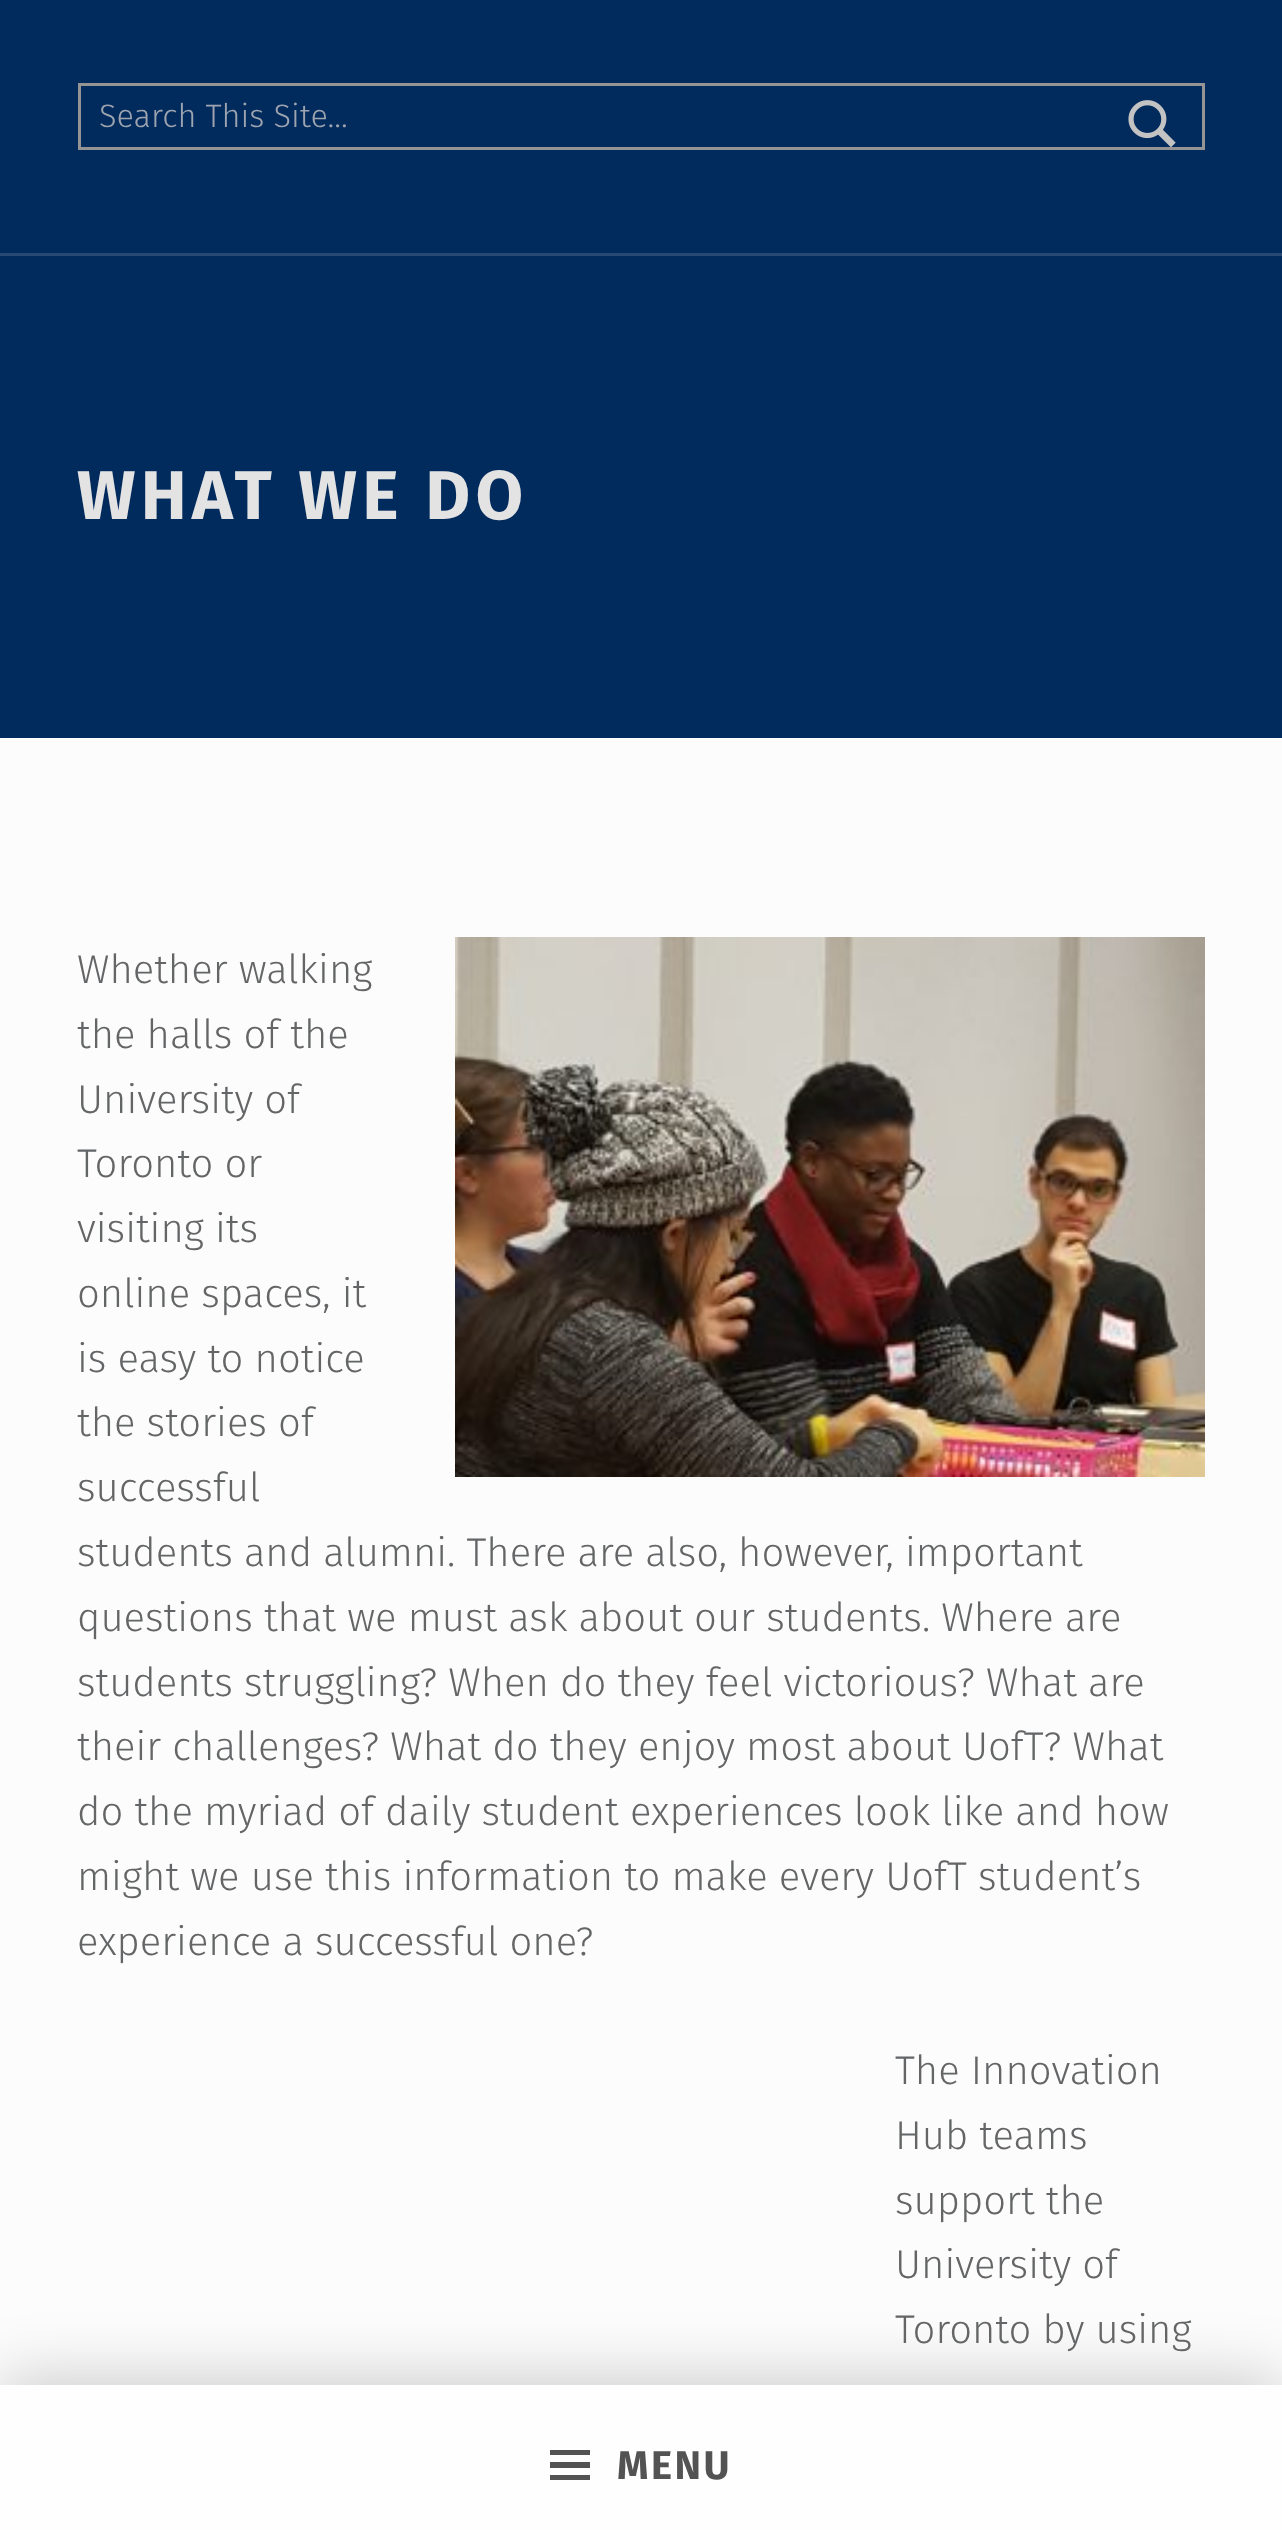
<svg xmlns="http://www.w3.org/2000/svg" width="1282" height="2530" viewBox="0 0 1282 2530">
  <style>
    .t1 { font: 300 32.5px Fira Sans; fill: #9da4af; }
    .t2 { font: bold 40px Fira Sans; letter-spacing: 2.5px; fill: #545353; }
    .t3 { font: bold 69px Fira Sans; letter-spacing: 5.25px; fill: #e4e3e3; }
    .t4 { font: 300 40px Fira Sans; fill: #636566; }
  </style>
  <rect width="100%" height="100%" fill="#fdfcfc"/>
  <rect x="0" y="0" width="1282" height="253" fill="#012a5d"/>
  <rect x="0" y="253" width="1282" height="3" fill="#284971"/>
  <rect x="79.5" y="84.5" width="1124" height="64" fill="none" stroke="#949494" stroke-width="3"/>
  <text x="99" y="127" class="t1">Search This Site...</text>
  <image x="1128" y="100" width="48" height="48" href="images/1.png"/>
  <rect x="0" y="2380" width="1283" height="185" fill="#00000033" filter="blur(32.5px)"/>
  <rect x="0" y="2385" width="1282" height="145" fill="#fffefe"/>
  <path d="M550 2480V2475H590V2480ZM550 2450H590V2455H550ZM550 2468V2462H590V2468Z" fill="#545353"/>
  <text x="617" y="2479" class="t2">MENU</text>
  <rect x="0" y="256" width="1282" height="482" fill="#012a5d"/>
  <text x="77" y="519" class="t3">WHAT WE DO</text>
  <text x="77" y="983" class="t4">Whether walking</text>
  <image x="455" y="937" width="750" height="540" href="images/2.png"/>
  <text x="77" y="1048" class="t4">the halls of the</text>
  <text x="77" y="1113" class="t4">University of</text>
  <text x="77" y="1177" class="t4">Toronto or</text>
  <text x="77" y="1242" class="t4">visiting its</text>
  <text x="77" y="1307" class="t4">online spaces, it</text>
  <text x="77" y="1372" class="t4">is easy to notice</text>
  <text x="77" y="1436" class="t4">the stories of</text>
  <text x="77" y="1501" class="t4">successful</text>
  <text x="77" y="1566" class="t4">students and alumni. There are also, however, important</text>
  <text x="77" y="1631" class="t4">questions that we must ask about our students. Where are</text>
  <text x="77" y="1696" class="t4">students struggling? When do they feel victorious? What are</text>
  <text x="77" y="1760" class="t4">their challenges? What do they enjoy most about UofT? What</text>
  <text x="77" y="1825" class="t4">do the myriad of daily student experiences look like and how</text>
  <text x="77" y="1890" class="t4">might we use this information to make every UofT student’s</text>
  <text x="77" y="1955" class="t4">experience a successful one?</text>
  <text x="895" y="2084" class="t4">The Innovation</text>
  <text x="895" y="2149" class="t4">Hub teams</text>
  <text x="895" y="2214" class="t4">support the</text>
  <text x="895" y="2278" class="t4">University of</text>
  <text x="895" y="2343" class="t4">Toronto by using</text>
</svg>
